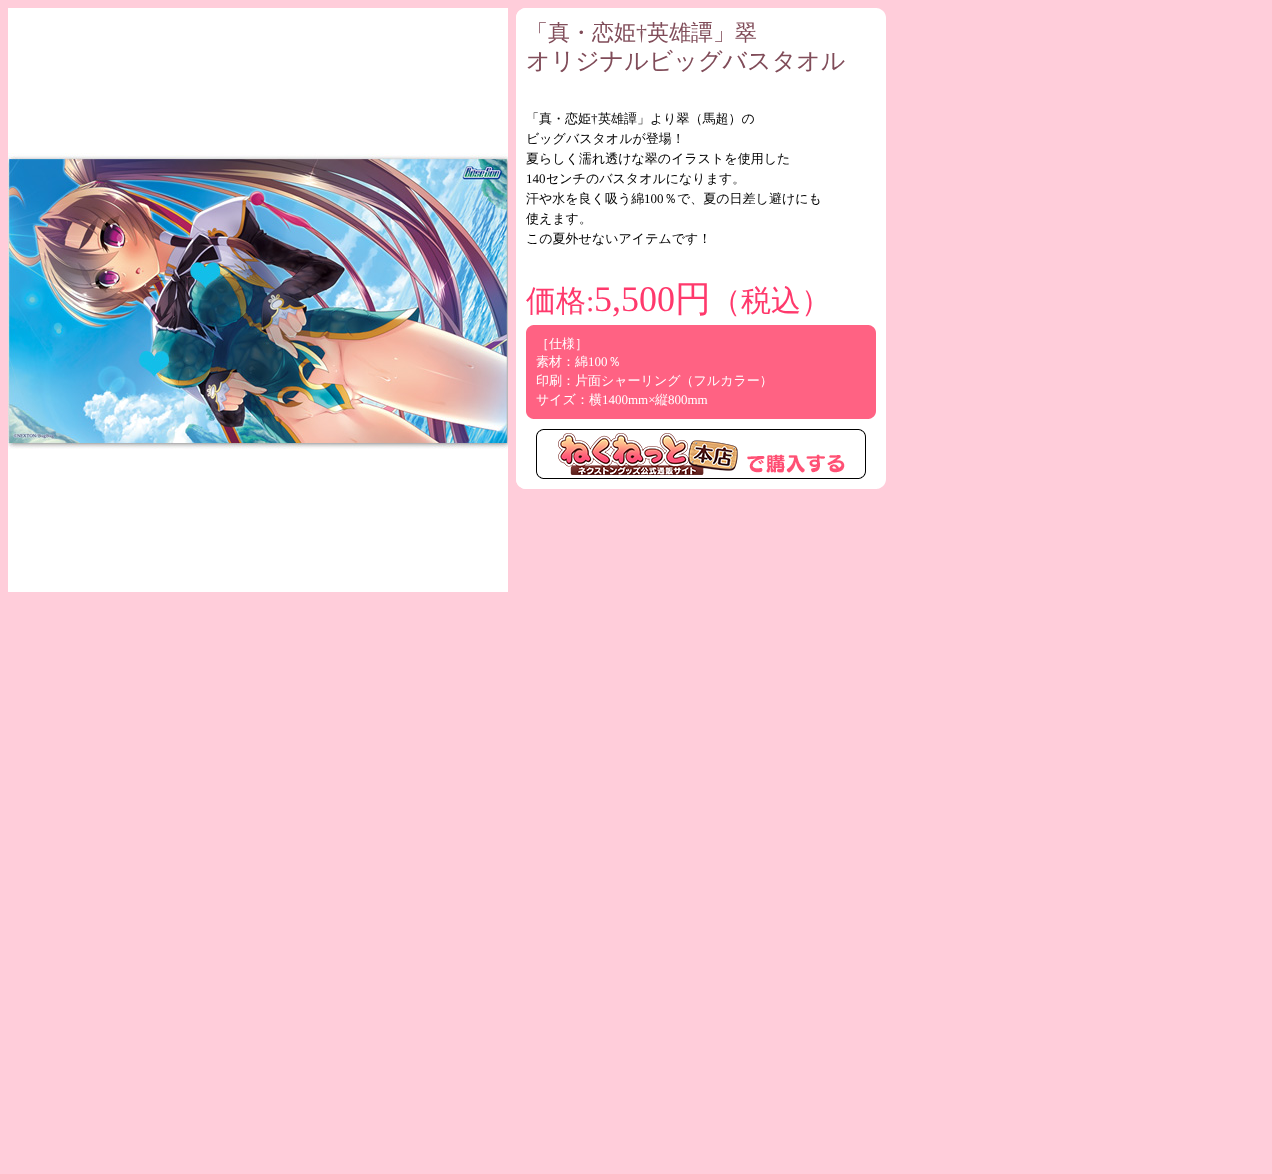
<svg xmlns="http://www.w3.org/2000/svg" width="1272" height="1174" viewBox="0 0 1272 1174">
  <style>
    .t1 { font: 500 22px WenQuanYi Zen Hei; fill: #804c59; }
    .t2 { font: 22px Liberation Serif; fill: #804c59; }
    .t3 { font: 500 24px WenQuanYi Zen Hei; fill: #804c59; }
    .t4 { font: 500 13px WenQuanYi Zen Hei; fill: #000; }
    .t5 { font: 13px Liberation Serif; fill: #000; }
    .t6 { font: 500 30px WenQuanYi Zen Hei; fill: #ff396c; }
    .t7 { font: 30px Liberation Serif; fill: #ff396c; }
    .t8 { font: 36px Liberation Serif; fill: #ff396c; }
    .t9 { font: 500 36px WenQuanYi Zen Hei; fill: #ff396c; }
    .t10 { font: 500 13px WenQuanYi Zen Hei; fill: #fff; }
    .t11 { font: 13px Liberation Serif; fill: #fff; }
  </style>
  <rect width="100%" height="100%" fill="#ffcdda"/>
  <rect x="8" y="8" width="500" height="584" fill="#fff"/>
  <image x="8" y="153" width="500" height="296" href="images/1.png"/>
  <image x="516" y="8" width="370" height="10" href="images/2.png"/>
  <rect x="516" y="18" width="370" height="307" fill="#fff"/>
  <text x="526" y="40" class="t1">「真・恋姫</text>
  <text x="636" y="40" class="t2">†</text>
  <text x="647" y="40" class="t1">英雄譚」翠</text>
  <text x="526" y="69" class="t3">オリジナルビッグバスタオル</text>
  <text x="526" y="123" class="t4">「真・恋姫</text>
  <text x="591" y="123" class="t5">†</text>
  <text x="598" y="123" class="t4">英雄譚」より翠（馬超）の</text>
  <text x="526" y="143" class="t4">ビッグバスタオルが登場！</text>
  <text x="526" y="163" class="t4">夏らしく濡れ透けな翠のイラストを使用した</text>
  <text x="526" y="183" class="t5">140</text>
  <text x="546" y="183" class="t4">センチのバスタオルになります。</text>
  <text x="526" y="203" class="t4">汗や水を良く吸う綿</text>
  <text x="644" y="203" class="t5">100</text>
  <text x="664" y="203" class="t4">％で、夏の日差し避けにも</text>
  <text x="526" y="223" class="t4">使えます。</text>
  <text x="526" y="243" class="t4">この夏外せないアイテムです！</text>
  <text x="526" y="311" class="t6">価格</text>
  <text x="586" y="311" class="t7">:</text>
  <text x="594" y="311" class="t8">5,500</text>
  <text x="675" y="311" class="t9">円</text>
  <text x="711" y="311" class="t6">（税込）</text>
  <image x="516" y="325" width="370" height="10" href="images/3.png"/>
  <image x="516" y="335" width="370" height="74" href="images/4.png"/>
  <text x="536" y="348" class="t10">［仕様］</text>
  <text x="536" y="366" class="t10">素材：綿</text>
  <text x="588" y="366" class="t11">100</text>
  <text x="608" y="366" class="t10">％</text>
  <text x="536" y="385" class="t10">印刷：片面シャーリング（フルカラー）</text>
  <text x="536" y="404" class="t10">サイズ：横</text>
  <text x="602" y="404" class="t11">1400mm×</text>
  <text x="655" y="404" class="t10">縦</text>
  <text x="668" y="404" class="t11">800mm</text>
  <image x="516" y="409" width="370" height="10" href="images/5.png"/>
  <rect x="516" y="419" width="370" height="60" fill="#fff"/>
  <image x="536" y="429" width="330" height="50" href="images/6.png"/>
  <image x="516" y="479" width="370" height="10" href="images/7.png"/>
</svg>
